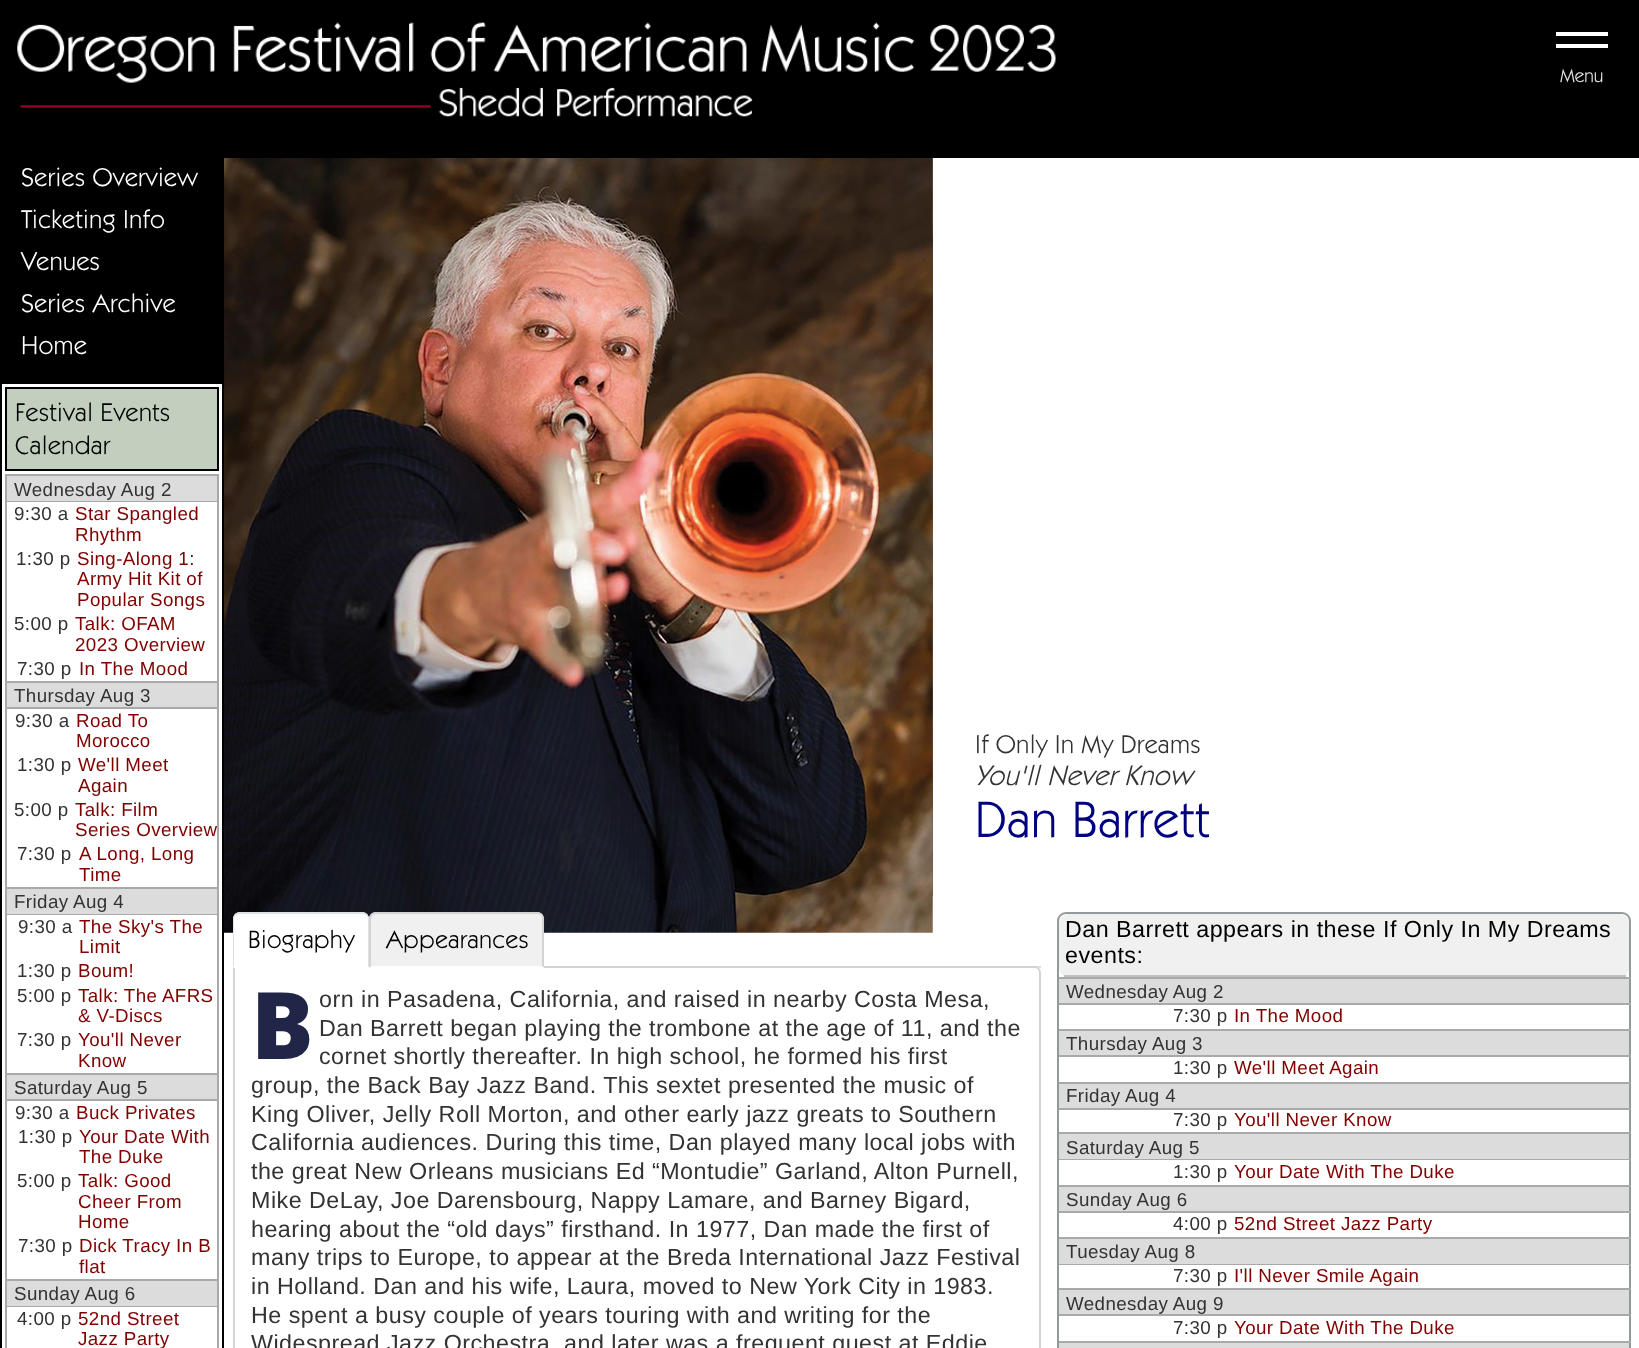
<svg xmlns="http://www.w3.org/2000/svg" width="1639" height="1348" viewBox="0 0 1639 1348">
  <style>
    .t1 { font: 19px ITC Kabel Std; fill: #e6e6e6; }
    .t2 { font: 25.75px ITC Kabel Std; letter-spacing: 0.5px; fill: #fff; }
    .t3 { font: 25.75px ITC Kabel Std; letter-spacing: 0.5px; fill: #000; }
    .t4 { font: 18.75px Liberation Sans; letter-spacing: 0.4px; fill: #333; }
    .t5 { font: 18.75px Liberation Sans; letter-spacing: 0.4px; fill: #800000; }
    .t6 { font: 25.75px ITC Kabel Std; letter-spacing: 0.5px; fill: #333; }
    .t7 { font: italic 28px ITC Kabel Std; letter-spacing: 0.6px; fill: #333; }
    .t8 { font: 51.5px ITC Kabel Std; letter-spacing: 1px; fill: #000080; }
    .t9 { font: 25.25px ITC Kabel Std; letter-spacing: 0.5px; fill: #000; }
    .t10 { font: 900 93px Noto Sans; letter-spacing: 0.47px; fill: #212547; }
    .t11 { font: 23.3px Liberation Sans; letter-spacing: 0.47px; fill: #333; }
    .t12 { font: 23.3px Liberation Sans; letter-spacing: 0.47px; fill: #000; }
  </style>
  <rect width="100%" height="100%" fill="#fff"/>
  <rect x="0" y="0" width="1639" height="158" fill="#000"/>
  <image x="17" y="22" width="1039" height="95" href="images/1.png"/>
  <rect x="1556" y="32" width="52" height="4" fill="#fff"/>
  <rect x="1556" y="44" width="52" height="4" fill="#fff"/>
  <text x="1560" y="82" class="t1">Menu</text>
  <rect x="222" y="384" width="2" height="964" fill="#000"/>
  <rect x="0" y="384" width="2" height="964" fill="#000"/>
  <rect x="0" y="158" width="224" height="226" fill="#000"/>
  <text x="21" y="186" class="t2">Series Overview</text>
  <text x="21" y="228" class="t2">Ticketing Info</text>
  <text x="21" y="270" class="t2">Venues</text>
  <text x="21" y="312" class="t2">Series Archive</text>
  <text x="21" y="354" class="t2">Home</text>
  <rect x="6" y="388" width="212" height="82" fill="#c2cebe" stroke="#000" stroke-width="2"/>
  <text x="15" y="421" class="t3">Festival Events</text>
  <text x="15" y="454" class="t3">Calendar</text>
  <rect x="217" y="474" width="2" height="874" fill="#a9a9a9"/>
  <rect x="5" y="474" width="2" height="874" fill="#a9a9a9"/>
  <rect x="7" y="476" width="210" height="25" fill="#dcdcdc"/>
  <rect x="7" y="474" width="212" height="2" fill="#a9a9a9"/>
  <rect x="7" y="501" width="212" height="2" fill="#a9a9a9"/>
  <text x="14" y="496" class="t4">Wednesday Aug 2</text>
  <rect x="7" y="502" width="210" height="1" fill="#fff"/>
  <text x="14" y="520" class="t4">9:30 a</text>
  <text x="75" y="520" class="t5">Star Spangled</text>
  <text x="75" y="541" class="t5">Rhythm</text>
  <text x="16" y="565" class="t4">1:30 p</text>
  <text x="77" y="565" class="t5">Sing-Along 1:</text>
  <text x="77" y="585" class="t5">Army Hit Kit of</text>
  <text x="77" y="606" class="t5">Popular Songs</text>
  <text x="14" y="630" class="t4">5:00 p</text>
  <text x="75" y="630" class="t5">Talk: OFAM</text>
  <text x="75" y="651" class="t5">2023 Overview</text>
  <text x="17" y="675" class="t4">7:30 p</text>
  <text x="79" y="675" class="t5">In The Mood</text>
  <rect x="7" y="683" width="210" height="24" fill="#dcdcdc"/>
  <rect x="7" y="681" width="212" height="2" fill="#a9a9a9"/>
  <rect x="7" y="707" width="212" height="2" fill="#a9a9a9"/>
  <text x="14" y="702" class="t4">Thursday Aug 3</text>
  <text x="15" y="727" class="t4">9:30 a</text>
  <text x="76" y="727" class="t5">Road To</text>
  <text x="76" y="747" class="t5">Morocco</text>
  <text x="17" y="771" class="t4">1:30 p</text>
  <text x="78" y="771" class="t5">We'll Meet</text>
  <text x="78" y="792" class="t5">Again</text>
  <text x="14" y="816" class="t4">5:00 p</text>
  <text x="75" y="816" class="t5">Talk: Film</text>
  <text x="75" y="836" class="t5">Series Overview</text>
  <text x="17" y="860" class="t4">7:30 p</text>
  <text x="79" y="860" class="t5">A Long, Long</text>
  <text x="79" y="881" class="t5">Time</text>
  <rect x="7" y="889" width="210" height="25" fill="#dcdcdc"/>
  <rect x="7" y="887" width="212" height="2" fill="#a9a9a9"/>
  <rect x="7" y="914" width="212" height="2" fill="#a9a9a9"/>
  <text x="14" y="908" class="t4">Friday Aug 4</text>
  <rect x="7" y="915" width="210" height="1" fill="#fff"/>
  <text x="18" y="933" class="t4">9:30 a</text>
  <text x="79" y="933" class="t5">The Sky's The</text>
  <text x="79" y="953" class="t5">Limit</text>
  <text x="17" y="977" class="t4">1:30 p</text>
  <text x="78" y="977" class="t5">Boum!</text>
  <text x="17" y="1002" class="t4">5:00 p</text>
  <text x="78" y="1002" class="t5">Talk: The AFRS</text>
  <text x="78" y="1022" class="t5">&amp; V-Discs</text>
  <text x="17" y="1046" class="t4">7:30 p</text>
  <text x="78" y="1046" class="t5">You'll Never</text>
  <text x="78" y="1067" class="t5">Know</text>
  <rect x="7" y="1075" width="210" height="24" fill="#dcdcdc"/>
  <rect x="7" y="1073" width="212" height="2" fill="#a9a9a9"/>
  <rect x="7" y="1099" width="212" height="2" fill="#a9a9a9"/>
  <text x="14" y="1094" class="t4">Saturday Aug 5</text>
  <text x="15" y="1119" class="t4">9:30 a</text>
  <text x="76" y="1119" class="t5">Buck Privates</text>
  <text x="18" y="1143" class="t4">1:30 p</text>
  <text x="79" y="1143" class="t5">Your Date With</text>
  <text x="79" y="1163" class="t5">The Duke</text>
  <text x="17" y="1187" class="t4">5:00 p</text>
  <text x="78" y="1187" class="t5">Talk: Good</text>
  <text x="78" y="1208" class="t5">Cheer From</text>
  <text x="78" y="1228" class="t5">Home</text>
  <text x="18" y="1252" class="t4">7:30 p</text>
  <text x="79" y="1252" class="t5">Dick Tracy In B</text>
  <text x="79" y="1273" class="t5">flat</text>
  <rect x="7" y="1281" width="210" height="25" fill="#dcdcdc"/>
  <rect x="7" y="1279" width="212" height="2" fill="#a9a9a9"/>
  <rect x="7" y="1306" width="212" height="2" fill="#a9a9a9"/>
  <text x="14" y="1300" class="t4">Sunday Aug 6</text>
  <rect x="7" y="1307" width="210" height="1" fill="#fff"/>
  <text x="17" y="1325" class="t4">4:00 p</text>
  <text x="78" y="1325" class="t5">52nd Street</text>
  <text x="78" y="1345" class="t5">Jazz Party</text>
  <image x="932" y="158" width="1" height="738" href="images/3.png"/>
  <image x="224" y="158" width="709" height="775" href="images/2.png"/>
  <text x="975" y="753" class="t6">If Only In My Dreams</text>
  <text x="975" y="785" class="t7">You'll Never Know</text>
  <text x="975" y="837" class="t8">Dan Barrett</text>
  <rect x="1034" y="966" width="7" height="2" fill="#dee2e6"/>
  <path d="M234 967H1034C1037.5 967 1040 969.5 1040 973V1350C1040 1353.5 1037.5 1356 1034 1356H240C236.5 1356 234 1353.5 234 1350Z" fill="none" stroke="#d3d3d3" stroke-width="2"/>
  <path d="M240 912H362C366 912 369 915 369 919V968H233V919C233 915 236 912 240 912Z" fill="#fff"/>
  <path d="M240 912C238 912 236 913 235 914L236 915L240 914H363L366 915L367 914C366 913 364 912 362 912Z" fill="#dee2e6"/>
  <path d="M369 968V919C369 917 368 915 367 914L366 915C367 916 368 917 368 919V966Z" fill="#dee2e6"/>
  <path d="M233 968L234 966H368L369 968Z" fill="#fff"/>
  <path d="M235 914C234 915 233 917 233 919V968L234 966V919C234 917 235 916 236 915Z" fill="#dee2e6"/>
  <text x="248" y="948" class="t9">Biography</text>
  <path d="M376 912H537C541 912 544 915 544 919V968H369V919C369 915 372 912 376 912Z" fill="#f0f0f0"/>
  <path d="M376 912C374 912 372 913 371 914L373 915L376 914H537C538 914 540 914 541 915L542 914C541 913 539 912 537 912Z" fill="#d3d3d3"/>
  <path d="M544 968V919C544 917 543 915 542 914L541 915C542 916 542 918 542 919V966Z" fill="#d3d3d3"/>
  <path d="M544 968H369L371 966H542Z" fill="#fff"/>
  <path d="M369 968L371 966V919C371 917 372 916 373 915L371 914L369 917Z" fill="#d3d3d3"/>
  <text x="386" y="948" class="t9">Appearances</text>
  <text x="251" y="1059" class="t10">B</text>
  <text x="319" y="1007" class="t11">orn in Pasadena, California, and raised in nearby Costa Mesa,</text>
  <text x="319" y="1036" class="t11">Dan Barrett began playing the trombone at the age of 11, and the</text>
  <text x="319" y="1064" class="t11">cornet shortly thereafter. In high school, he formed his first</text>
  <text x="251" y="1093" class="t11">group, the Back Bay Jazz Band. This sextet presented the music of</text>
  <text x="251" y="1122" class="t11">King Oliver, Jelly Roll Morton, and other early jazz greats to Southern</text>
  <text x="251" y="1150" class="t11">California audiences. During this time, Dan played many local jobs with</text>
  <text x="251" y="1179" class="t11">the great New Orleans musicians Ed “Montudie” Garland, Alton Purnell,</text>
  <text x="251" y="1208" class="t11">Mike DeLay, Joe Darensbourg, Nappy Lamare, and Barney Bigard,</text>
  <text x="251" y="1237" class="t11">hearing about the “old days” firsthand. In 1977, Dan made the first of</text>
  <text x="251" y="1265" class="t11">many trips to Europe, to appear at the Breda International Jazz Festival</text>
  <text x="251" y="1294" class="t11">in Holland. Dan and his wife, Laura, moved to New York City in 1983.</text>
  <text x="251" y="1323" class="t11">He spent a busy couple of years touring with and writing for the</text>
  <text x="251" y="1351" class="t11">Widespread Jazz Orchestra, and later was a frequent guest at Eddie</text>
  <rect x="1058" y="913" width="572" height="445" rx="8" fill="none" stroke="#919b9c" stroke-width="2"/>
  <rect x="1059" y="914" width="570" height="63" rx="9" fill="#f0f0f0"/>
  <rect x="1064" y="975" width="562" height="2" fill="#c0c0c0"/>
  <text x="1065" y="937" class="t12">Dan Barrett appears in these If Only In My Dreams</text>
  <text x="1065" y="963" class="t12">events:</text>
  <rect x="1059" y="979" width="570" height="24" fill="#dcdcdc"/>
  <rect x="1059" y="977" width="572" height="2" fill="#a9a9a9"/>
  <rect x="1059" y="1003" width="572" height="2" fill="#a9a9a9"/>
  <text x="1066" y="998" class="t4">Wednesday Aug 2</text>
  <text x="1173" y="1022" class="t4">7:30 p</text>
  <text x="1234" y="1022" class="t5">In The Mood</text>
  <rect x="1059" y="1031" width="570" height="24" fill="#dcdcdc"/>
  <rect x="1059" y="1029" width="572" height="2" fill="#a9a9a9"/>
  <rect x="1059" y="1055" width="572" height="2" fill="#a9a9a9"/>
  <text x="1066" y="1050" class="t4">Thursday Aug 3</text>
  <text x="1173" y="1074" class="t4">1:30 p</text>
  <text x="1234" y="1074" class="t5">We'll Meet Again</text>
  <rect x="1059" y="1084" width="570" height="24" fill="#dcdcdc"/>
  <rect x="1059" y="1082" width="572" height="2" fill="#a9a9a9"/>
  <rect x="1059" y="1108" width="572" height="2" fill="#a9a9a9"/>
  <text x="1066" y="1102" class="t4">Friday Aug 4</text>
  <text x="1173" y="1126" class="t4">7:30 p</text>
  <text x="1234" y="1126" class="t5">You'll Never Know</text>
  <rect x="1059" y="1134" width="570" height="25" fill="#dcdcdc"/>
  <rect x="1059" y="1132" width="572" height="2" fill="#a9a9a9"/>
  <rect x="1059" y="1159" width="572" height="2" fill="#a9a9a9"/>
  <text x="1066" y="1154" class="t4">Saturday Aug 5</text>
  <rect x="1059" y="1160" width="570" height="1" fill="#fff"/>
  <text x="1173" y="1178" class="t4">1:30 p</text>
  <text x="1234" y="1178" class="t5">Your Date With The Duke</text>
  <rect x="1059" y="1187" width="570" height="24" fill="#dcdcdc"/>
  <rect x="1059" y="1185" width="572" height="2" fill="#a9a9a9"/>
  <rect x="1059" y="1211" width="572" height="2" fill="#a9a9a9"/>
  <text x="1066" y="1206" class="t4">Sunday Aug 6</text>
  <text x="1173" y="1230" class="t4">4:00 p</text>
  <text x="1234" y="1230" class="t5">52nd Street Jazz Party</text>
  <rect x="1059" y="1239" width="570" height="25" fill="#dcdcdc"/>
  <rect x="1059" y="1237" width="572" height="2" fill="#a9a9a9"/>
  <rect x="1059" y="1264" width="572" height="2" fill="#a9a9a9"/>
  <text x="1066" y="1258" class="t4">Tuesday Aug 8</text>
  <rect x="1059" y="1265" width="570" height="1" fill="#fff"/>
  <text x="1173" y="1282" class="t4">7:30 p</text>
  <text x="1234" y="1282" class="t5">I'll Never Smile Again</text>
  <rect x="1059" y="1290" width="570" height="24" fill="#dcdcdc"/>
  <rect x="1059" y="1288" width="572" height="2" fill="#a9a9a9"/>
  <rect x="1059" y="1314" width="572" height="2" fill="#a9a9a9"/>
  <text x="1066" y="1310" class="t4">Wednesday Aug 9</text>
  <text x="1173" y="1334" class="t4">7:30 p</text>
  <text x="1234" y="1334" class="t5">Your Date With The Duke</text>
  <rect x="1059" y="1343" width="570" height="5" fill="#dcdcdc"/>
  <rect x="1059" y="1341" width="572" height="2" fill="#a9a9a9"/>
</svg>
